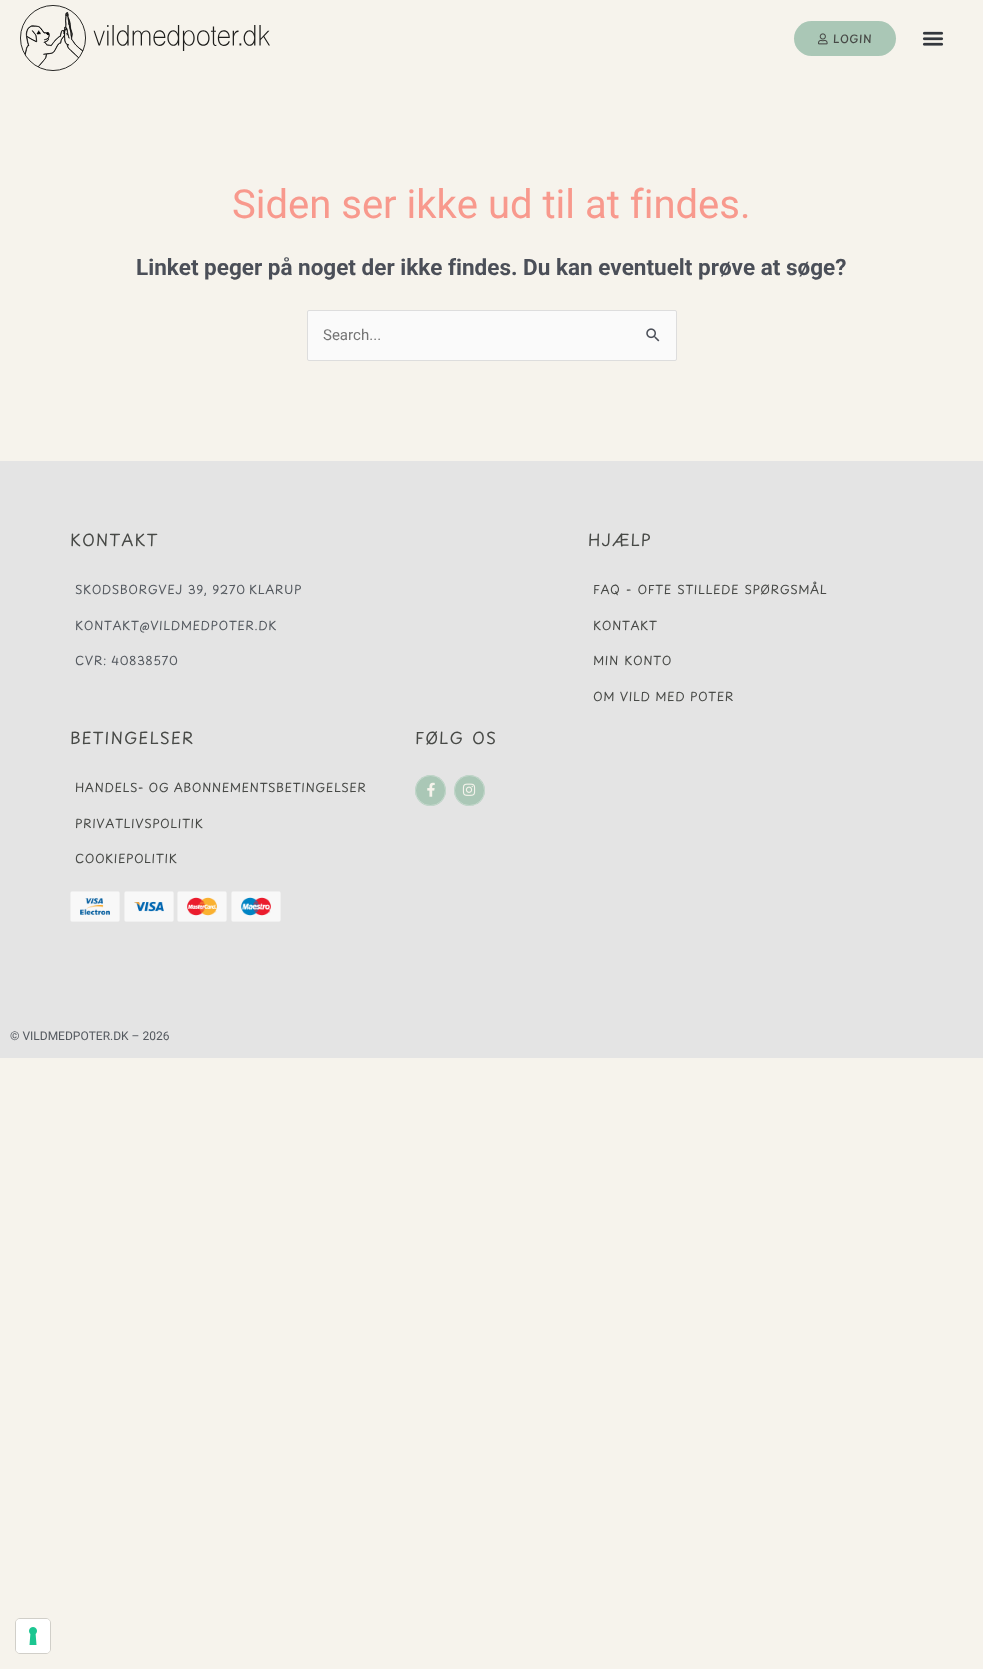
<svg xmlns="http://www.w3.org/2000/svg" width="983" height="1669" viewBox="0 0 983 1669">
  <style>*{font-kerning:none!important;font-variant-ligatures:none!important}</style>
  <style>
    .t1 { font: 500 11px Playpen Sans; letter-spacing: 0.5px; fill: #474946; }
    .t2 { font: 40px Roboto; fill: #f8998d; }
    .t3 { font: bold 22.5px Roboto; fill: #4b4f58; }
    .t4 { font: 15px Roboto; fill: #757575; }
    .t5 { font: 16px Playpen Sans; letter-spacing: 1px; fill: #474946; }
    .t6 { font: 12px Playpen Sans; letter-spacing: 0.5px; fill: #54595f; }
    .t7 { font: 12px Playpen Sans; letter-spacing: 0.5px; fill: #474946; }
    .t8 { font: 12px Roboto; fill: #54595f; }
  </style>
  <rect width="100%" height="100%" fill="#f6f3ec"/>
  <image x="20" y="5" width="250" height="66" href="images/1.png"/>
  <rect x="794" y="21" width="102" height="35" rx="17.5" fill="#aac7b6"/>
  <image x="818" y="33" width="10" height="12" href="images/2.png"/>
  <text x="833" y="43" class="t1">LOGIN</text>
  <image x="922" y="31" width="22" height="15" href="images/3.png"/>
  <text x="232" y="218" class="t2">Siden ser ikke ud til at findes.</text>
  <text x="136" y="275" class="t3">Linket peger på noget der ikke findes. Du kan eventuelt prøve at søge?</text>
  <rect x="307.5" y="310.5" width="369" height="50" rx="1.5" fill="#fafafa" stroke="#ddd"/>
  <text x="323" y="340" class="t4">Search...</text>
  <image x="646" y="328" width="14" height="14" href="images/4.png"/>
  <rect x="0" y="461" width="983" height="597" fill="#e4e4e4"/>
  <text x="70" y="546" class="t5">KONTAKT</text>
  <text x="75" y="594" word-spacing="0.5" class="t6">SKODSBORGVEJ 39, 9270</text>
  <text x="249" y="594" word-spacing="0.5" class="t6">KLARUP</text>
  <text x="75" y="630" class="t6">KONTAKT@VILDMEDPOTER.DK</text>
  <text x="75" y="665" class="t6">CVR: 40838570</text>
  <text x="588" y="546" class="t5">HJÆLP</text>
  <text x="593" y="594" word-spacing="1" class="t7">FAQ - OFTE STILLEDE SPØRGSMÅL</text>
  <text x="593" y="630" class="t7">KONTAKT</text>
  <text x="593" y="665" word-spacing="1" class="t7">MIN KONTO</text>
  <text x="593" y="701" word-spacing="0.5" class="t7">OM VILD MED POTER</text>
  <text x="70" y="744" class="t5">BETINGELSER</text>
  <text x="75" y="792" class="t7">HANDELS- OG ABONNEMENTSBETINGELSER</text>
  <text x="75" y="828" class="t7">PRIVATLIVSPOLITIK</text>
  <text x="75" y="863" class="t7">COOKIEPOLITIK</text>
  <image x="70" y="891" width="50" height="31" href="images/5.png"/>
  <image x="124" y="891" width="50" height="31" href="images/6.png"/>
  <image x="177" y="891" width="50" height="31" href="images/7.png"/>
  <image x="231" y="891" width="50" height="31" href="images/8.png"/>
  <text x="415" y="744" word-spacing="2" class="t5">FØLG OS</text>
  <circle cx="430.5" cy="790.5" r="15.5" fill="#aac7b6"/>
  <circle cx="430.5" cy="790.5" r="15" fill="none" stroke="#ffffff47"/>
  <image x="427" y="782" width="8" height="15" href="images/9.png"/>
  <circle cx="469.5" cy="790.5" r="15.5" fill="#aac7b6"/>
  <circle cx="469.5" cy="790.5" r="15" fill="none" stroke="#ffffff47"/>
  <image x="462" y="783" width="14" height="13" href="images/10.png"/>
  <text x="10" y="1040" class="t8">© VILDMEDPOTER.DK – 2026</text>
  <rect x="15.5" y="1618.5" width="35" height="35" rx="4.5" fill="none" stroke="#d1cfc9"/>
  <rect x="16" y="1619" width="34" height="34" rx="4" fill="#fff"/>
  <image x="29" y="1627" width="8" height="18" href="images/11.png"/>
</svg>
